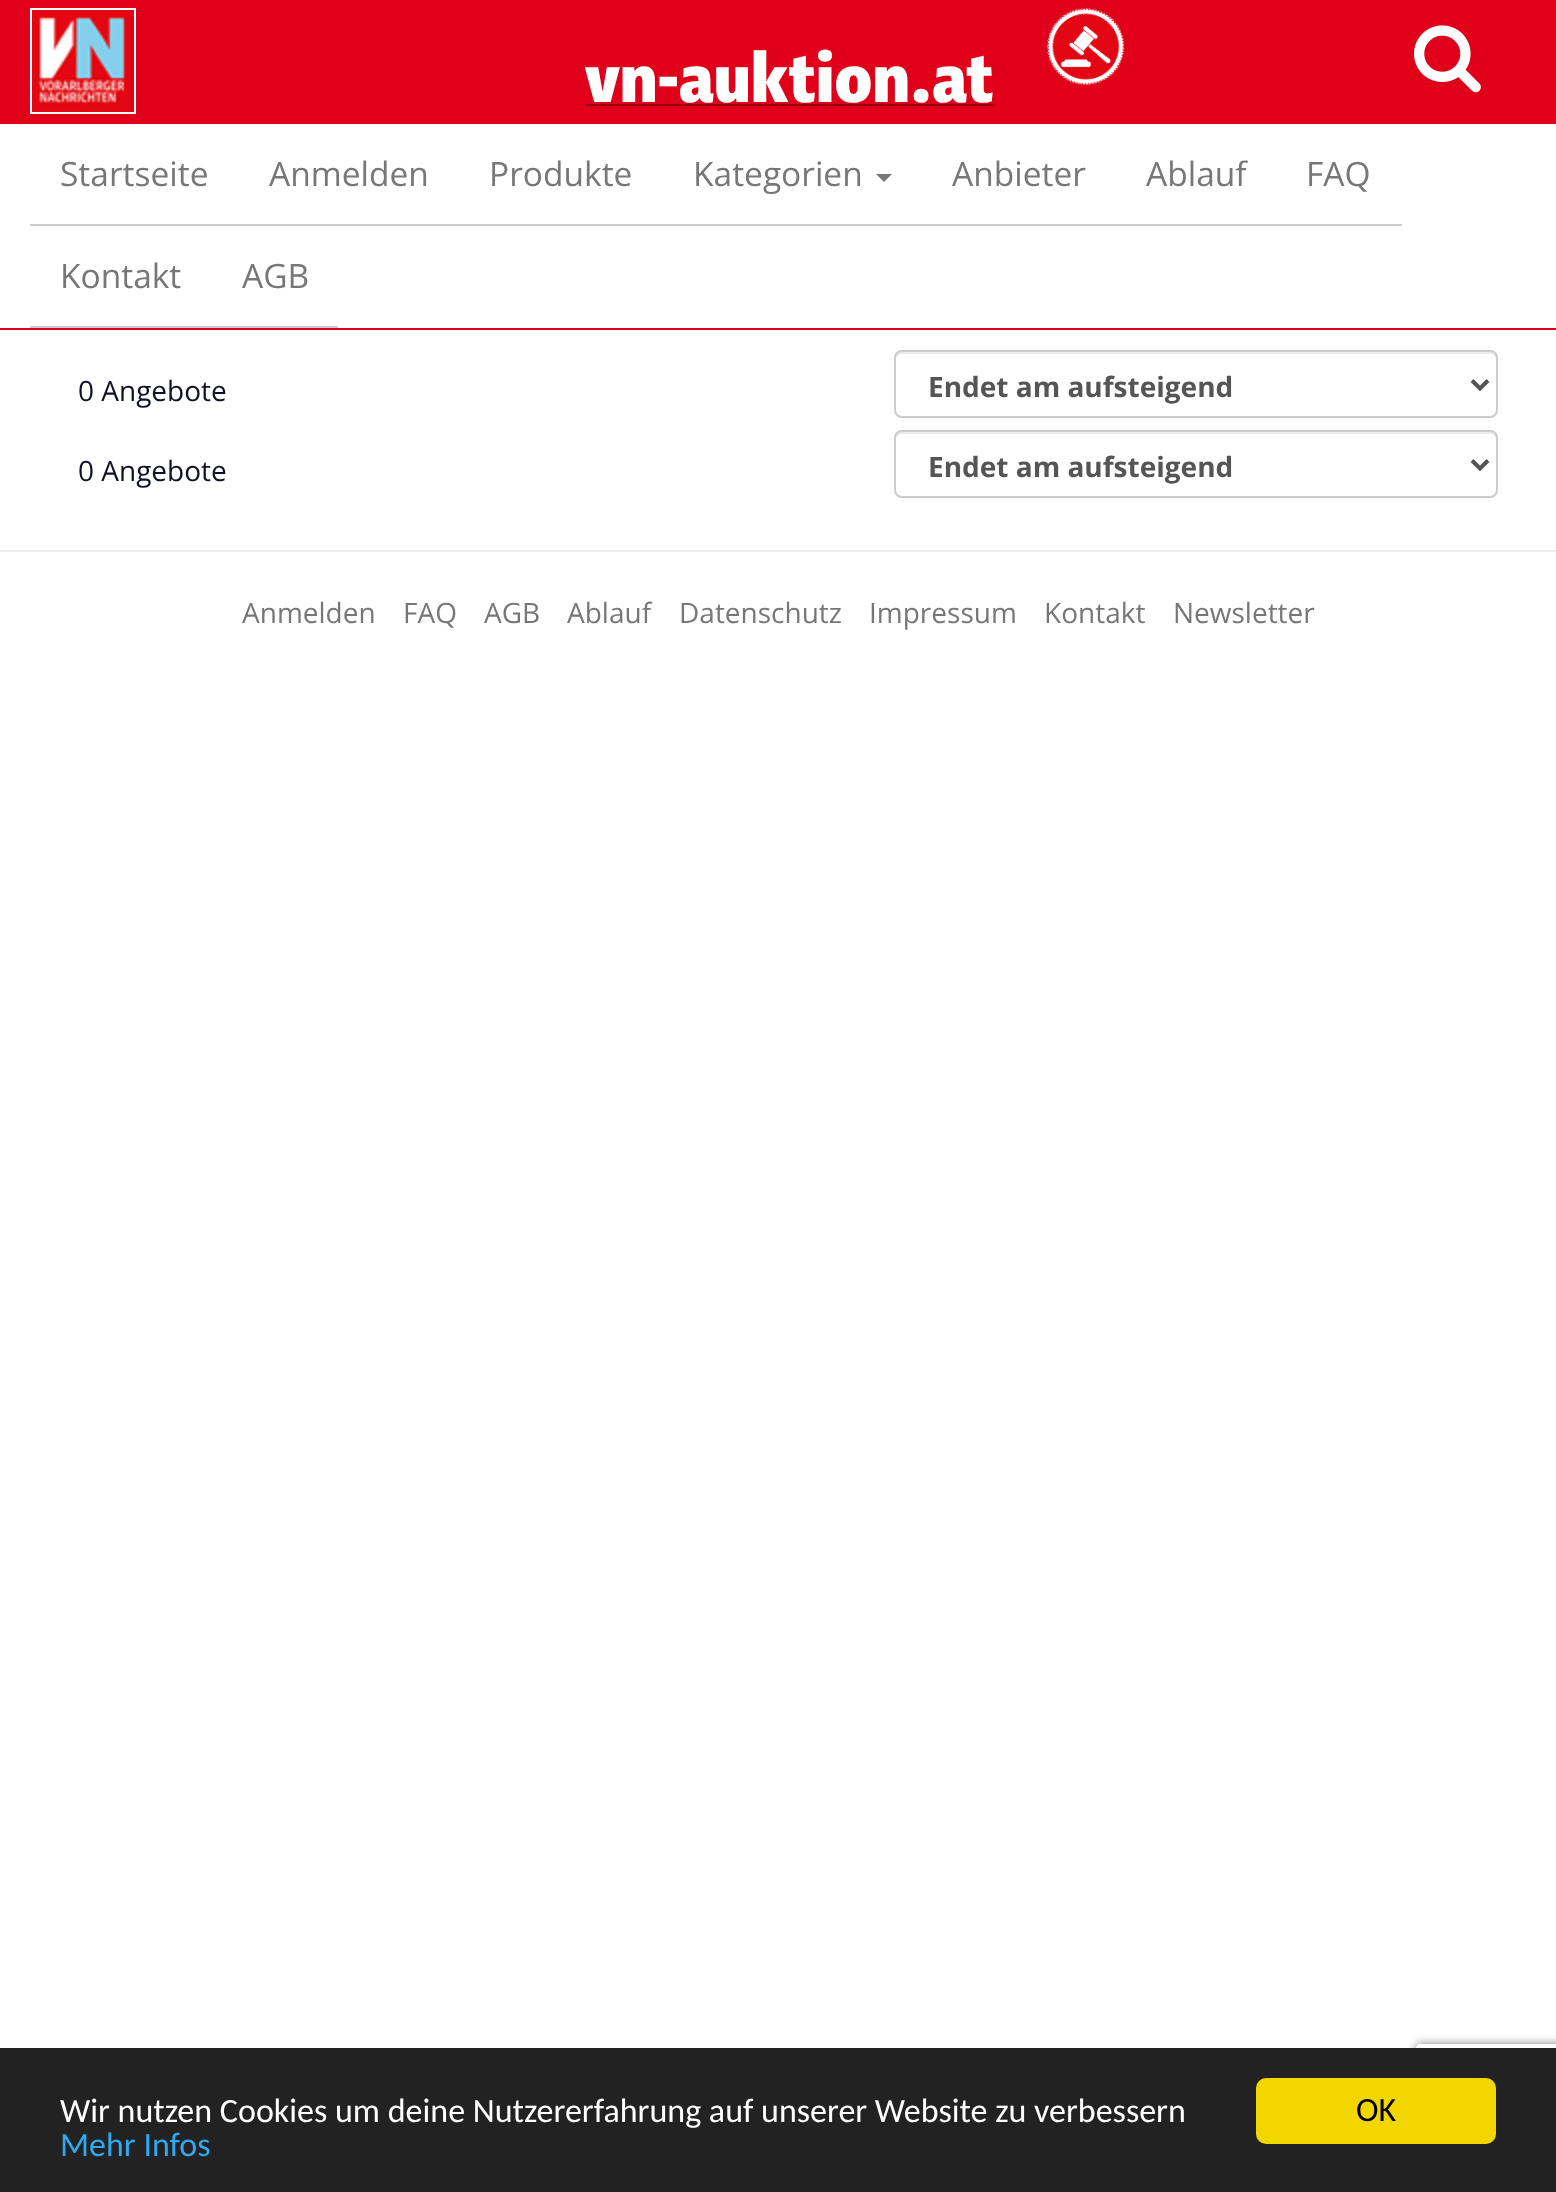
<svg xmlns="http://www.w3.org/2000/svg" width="1556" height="2192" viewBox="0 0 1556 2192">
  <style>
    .t1 { font: 800 72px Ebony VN; fill: #fff; }
    .t2 { font: 33.5px Open Sans; fill: #777; }
    .t3 { font: 28px Open Sans; fill: #0f1222; }
    .t4 { font: bold 28px Open Sans; fill: #555; }
    .t5 { font: 28px Open Sans; fill: #777; }
    .t6 { font: 34px Carlito; fill: #fff; }
    .t7 { font: 34px Carlito; fill: #31a8f0; }
    .t8 { font: 34px Carlito; fill: #000; }
  </style>
  <defs>
    <clipPath id="clip1"><path d="M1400 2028H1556V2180H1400ZM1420 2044H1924C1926 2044 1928 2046 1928 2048V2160C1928 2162 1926 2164 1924 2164H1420C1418 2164 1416 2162 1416 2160V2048C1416 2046 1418 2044 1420 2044Z" clip-rule="evenodd"/></clipPath>
  </defs>
  <rect width="100%" height="100%" fill="#fff"/>
  <rect x="0" y="328" width="1556" height="2" fill="#e0001a"/>
  <rect x="0" y="0" width="1556" height="124" fill="#e0001a"/>
  <image x="32" y="10" width="102" height="102" href="images/1.png"/>
  <rect x="31" y="9" width="104" height="104" fill="none" stroke="#fff" stroke-width="2"/>
  <image x="1047" y="7" width="78" height="79" href="images/2.png"/>
  <text x="585" y="102" class="t1">vn-auktion.at</text>
  <rect x="586" y="104" width="408" height="2" fill="#940011"/>
  <image x="1414" y="25" width="67" height="68" href="images/3.png"/>
  <rect x="30" y="224" width="1372" height="2" fill="#ccc"/>
  <text x="60" y="186" class="t2">Startseite</text>
  <text x="269" y="186" class="t2">Anmelden</text>
  <text x="489" y="186" class="t2">Produkte</text>
  <text x="693" y="186" class="t2">Kategorien</text>
  <path d="M876 174H892L884 182Z" fill="#777"/>
  <text x="952" y="186" class="t2">Anbieter</text>
  <text x="1146" y="186" class="t2">Ablauf</text>
  <text x="1306" y="186" class="t2">FAQ</text>
  <rect x="30" y="326" width="308" height="2" fill="#ccc"/>
  <text x="60" y="288" class="t2">Kontakt</text>
  <text x="242" y="288" class="t2">AGB</text>
  <text x="78" y="401" class="t3">0 Angebote</text>
  <path d="M902 354H1490C1493 354 1496 357 1496 360V358C1496 355 1493 352 1490 352H902C899 352 896 355 896 358V360C896 357 899 354 902 354Z" fill="#ececec"/>
  <rect x="895" y="351" width="602" height="66" rx="7" fill="none" stroke="#ccc" stroke-width="2"/>
  <path d="M1472 380.5L1480 388.5L1488 380.5" fill="none" stroke="#555" stroke-width="4"/>
  <text x="928" y="397" class="t4">Endet am aufsteigend</text>
  <text x="78" y="481" class="t3">0 Angebote</text>
  <path d="M902 434H1490C1493 434 1496 437 1496 440V438C1496 435 1493 432 1490 432H902C899 432 896 435 896 438V440C896 437 899 434 902 434Z" fill="#ececec"/>
  <rect x="895" y="431" width="602" height="66" rx="7" fill="none" stroke="#ccc" stroke-width="2"/>
  <path d="M1472 460.5L1480 468.5L1488 460.5" fill="none" stroke="#555" stroke-width="4"/>
  <text x="928" y="477" class="t4">Endet am aufsteigend</text>
  <rect x="0" y="550" width="1556" height="2" fill="#eee"/>
  <text x="242" y="623" class="t5">Anmelden</text>
  <text x="403" y="623" class="t5">FAQ</text>
  <text x="484" y="623" class="t5">AGB</text>
  <text x="567" y="623" class="t5">Ablauf</text>
  <text x="679" y="623" class="t5">Datenschutz</text>
  <text x="869" y="623" class="t5">Impressum</text>
  <text x="1044" y="623" class="t5">Kontakt</text>
  <text x="1173" y="623" class="t5">Newsletter</text>
  <g clip-path="url(#clip1)">
    <rect x="1416" y="2044" width="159" height="120" rx="4" fill="#808080" filter="blur(5px)"/>
  </g>
  <rect x="0" y="2048" width="1556" height="144" fill="#222"/>
  <text x="60" y="2122" class="t6">Wir nutzen Cookies um deine Nutzererfahrung auf unserer Website zu verbessern</text>
  <text x="60" y="2156" class="t7">Mehr Infos</text>
  <rect x="1256" y="2078" width="240" height="66" rx="10" fill="#f1d600"/>
  <text x="1356" y="2121" class="t8">OK</text>
</svg>
